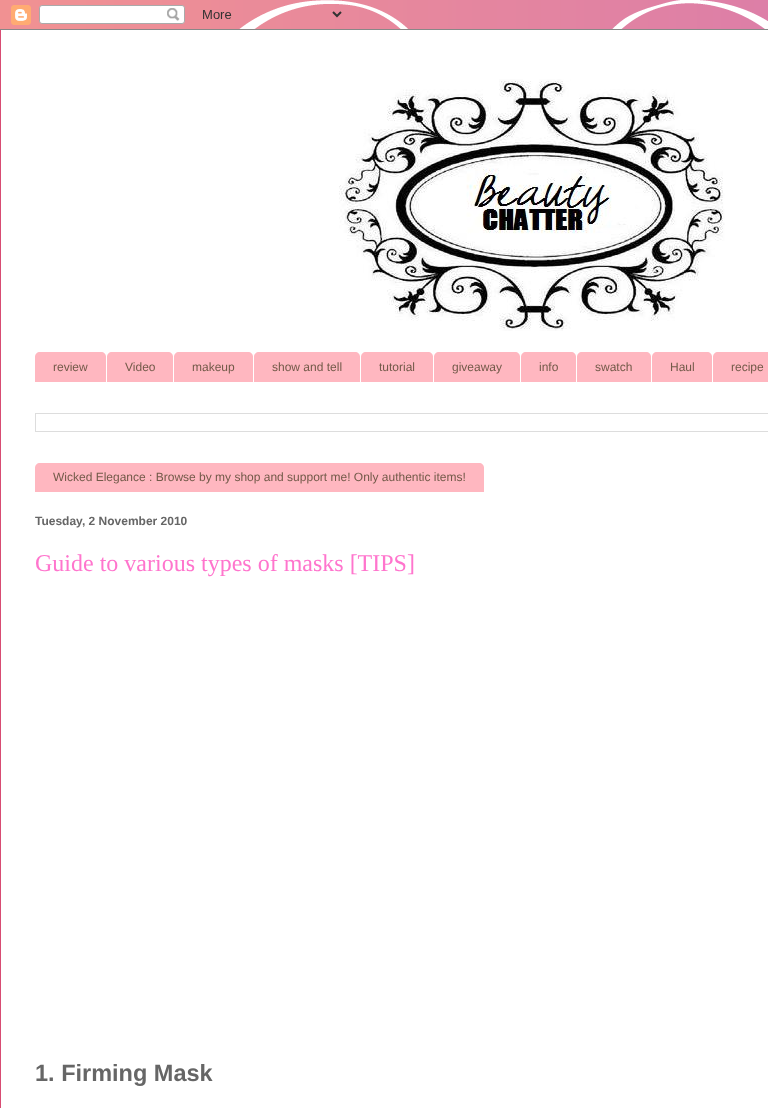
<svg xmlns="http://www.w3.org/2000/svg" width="768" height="1108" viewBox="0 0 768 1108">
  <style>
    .t1 { font: 12px Liberation Sans; fill: #735a49; }
    .t2 { font: bold 12px Liberation Sans; fill: #666; }
    .t3 { font: 24px Liberation Serif; fill: #ff75cd; }
    .t4 { font: bold 23.5px Liberation Sans; fill: #666; }
  </style>
  <rect width="100%" height="100%" fill="#fff"/>
  <image x="0" y="0" width="768" height="29" href="images/1.png"/>
  <image x="0" y="0" width="768" height="30" href="images/2.png"/>
  <rect x="0" y="30" width="1" height="1078" fill="#d84c73"/>
  <image x="339" y="79" width="386" height="252" href="images/3.png"/>
  <path d="M40 352H101C104 352 106 354 106 357V382H35V357C35 354 37 352 40 352Z" fill="#ffb7c0"/>
  <text x="53" y="371" class="t1">review</text>
  <path d="M112 352H168C171 352 173 354 173 357V382H107V357C107 354 109 352 112 352Z" fill="#ffb7c0"/>
  <text x="125" y="371" class="t1">Video</text>
  <path d="M179 352H248C251 352 253 354 253 357V382H174V357C174 354 176 352 179 352Z" fill="#ffb7c0"/>
  <text x="192" y="371" class="t1">makeup</text>
  <path d="M259 352H355C358 352 360 354 360 357V382H254V357C254 354 256 352 259 352Z" fill="#ffb7c0"/>
  <text x="272" y="371" class="t1">show and tell</text>
  <path d="M366 352H428C431 352 433 354 433 357V382H361V357C361 354 363 352 366 352Z" fill="#ffb7c0"/>
  <text x="379" y="371" class="t1">tutorial</text>
  <path d="M439 352H515C518 352 520 354 520 357V382H434V357C434 354 436 352 439 352Z" fill="#ffb7c0"/>
  <text x="452" y="371" class="t1">giveaway</text>
  <path d="M526 352H571C574 352 576 354 576 357V382H521V357C521 354 523 352 526 352Z" fill="#ffb7c0"/>
  <text x="539" y="371" class="t1">info</text>
  <path d="M582 352H646C649 352 651 354 651 357V382H577V357C577 354 579 352 582 352Z" fill="#ffb7c0"/>
  <text x="595" y="371" class="t1">swatch</text>
  <path d="M657 352H707C710 352 712 354 712 357V382H652V357C652 354 654 352 657 352Z" fill="#ffb7c0"/>
  <text x="670" y="371" class="t1">Haul</text>
  <path d="M718 352H768C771 352 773 354 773 357V382H713V357C713 354 715 352 718 352Z" fill="#ffb7c0"/>
  <text x="731" y="371" class="t1">recipe</text>
  <rect x="35.5" y="413.5" width="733" height="18" fill="none" stroke="#ddd"/>
  <path d="M40 463H479C482 463 484 465 484 468V492H35V468C35 465 37 463 40 463Z" fill="#ffb7c0"/>
  <text x="53" y="481" class="t1">Wicked Elegance : Browse by my shop and support me! Only authentic items!</text>
  <text x="35" y="525" class="t2">Tuesday, 2 November 2010</text>
  <text x="35" y="571" class="t3">Guide to various types of masks [TIPS]</text>
  <text x="35" y="1081" class="t4">1. Firming Mask</text>
</svg>
